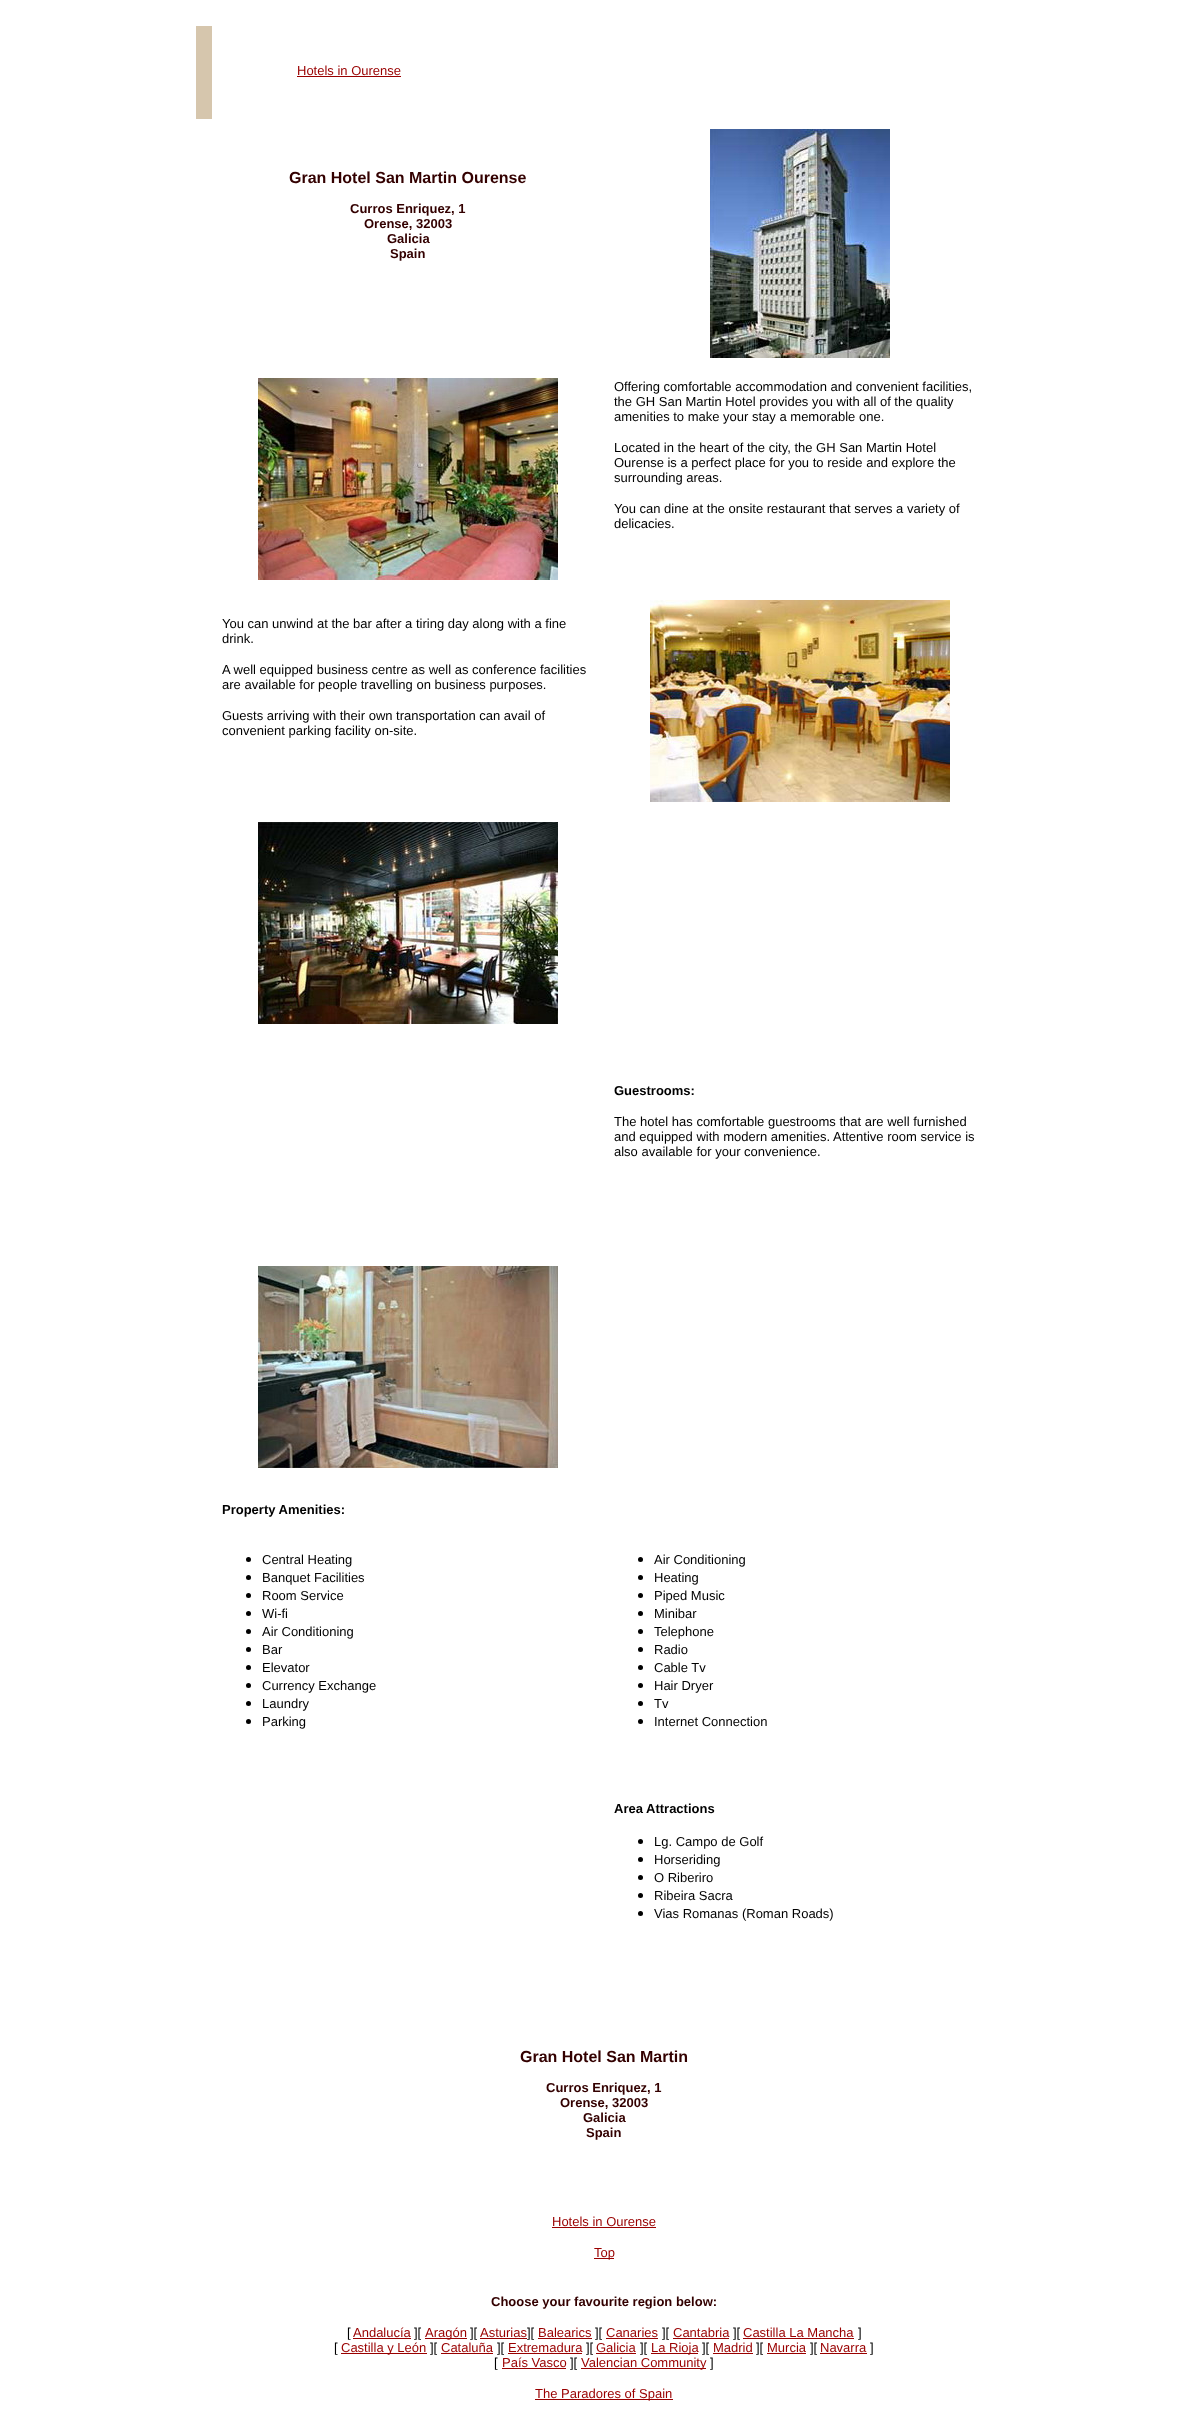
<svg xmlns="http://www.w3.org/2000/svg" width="1192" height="2429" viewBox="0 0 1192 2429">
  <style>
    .t1 { font: 13px Liberation Sans; fill: #900; }
    .t2 { font: bold 16px Liberation Sans; fill: #300; }
    .t3 { font: bold 13px Liberation Sans; fill: #300; }
    .t4 { font: 13px Liberation Sans; fill: #000; }
    .t5 { font: bold 13px Liberation Sans; fill: #000; }
  </style>
  <rect width="100%" height="100%" fill="#fff"/>
  <rect x="196" y="26" width="16" height="93" fill="#d6c6ad"/>
  <text x="297" y="75" class="t1">Hotels in Ourense</text>
  <rect x="297" y="76" width="104" height="1" fill="#900"/>
  <text x="289" y="183" class="t2">Gran Hotel San Martin Ourense</text>
  <text x="350" y="213" class="t3">Curros Enriquez, 1</text>
  <text x="364" y="228" class="t3">Orense, 32003</text>
  <text x="387" y="243" class="t3">Galicia</text>
  <text x="390" y="258" class="t3">Spain</text>
  <image x="710" y="129" width="180" height="229" href="images/1.png"/>
  <image x="258" y="378" width="300" height="202" href="images/2.png"/>
  <text x="614" y="391" class="t4">Offering comfortable accommodation and convenient facilities,</text>
  <text x="614" y="406" class="t4">the GH San Martin Hotel provides you with all of the quality</text>
  <text x="614" y="421" class="t4">amenities to make your stay a memorable one.</text>
  <text x="614" y="452" class="t4">Located in the heart of the city, the GH San Martin Hotel</text>
  <text x="614" y="467" class="t4">Ourense is a perfect place for you to reside and explore the</text>
  <text x="614" y="482" class="t4">surrounding areas.</text>
  <text x="614" y="513" class="t4">You can dine at the onsite restaurant that serves a variety of</text>
  <text x="614" y="528" class="t4">delicacies.</text>
  <text x="222" y="628" class="t4">You can unwind at the bar after a tiring day along with a fine</text>
  <text x="222" y="643" class="t4">drink.</text>
  <text x="222" y="674" class="t4">A well equipped business centre as well as conference facilities</text>
  <text x="222" y="689" class="t4">are available for people travelling on business purposes.</text>
  <text x="222" y="720" class="t4">Guests arriving with their own transportation can avail of</text>
  <text x="222" y="735" class="t4">convenient parking facility on-site.</text>
  <image x="650" y="600" width="300" height="202" href="images/3.png"/>
  <image x="258" y="822" width="300" height="202" href="images/4.png"/>
  <text x="614" y="1095" class="t5">Guestrooms:</text>
  <text x="614" y="1126" class="t4">The hotel has comfortable guestrooms that are well furnished</text>
  <text x="614" y="1141" class="t4">and equipped with modern amenities. Attentive room service is</text>
  <text x="614" y="1156" class="t4">also available for your convenience.</text>
  <image x="258" y="1266" width="300" height="202" href="images/5.png"/>
  <text x="222" y="1514" class="t5">Property Amenities:</text>
  <circle cx="248.5" cy="1559.5" r="2.5" fill="#000"/>
  <text x="262" y="1564" class="t4">Central Heating</text>
  <circle cx="248.5" cy="1577.5" r="2.5" fill="#000"/>
  <text x="262" y="1582" class="t4">Banquet Facilities</text>
  <circle cx="248.5" cy="1595.5" r="2.5" fill="#000"/>
  <text x="262" y="1600" class="t4">Room Service</text>
  <circle cx="248.5" cy="1613.5" r="2.5" fill="#000"/>
  <text x="262" y="1618" class="t4">Wi-fi</text>
  <circle cx="248.5" cy="1631.5" r="2.5" fill="#000"/>
  <text x="262" y="1636" class="t4">Air Conditioning</text>
  <circle cx="248.5" cy="1649.5" r="2.5" fill="#000"/>
  <text x="262" y="1654" class="t4">Bar</text>
  <circle cx="248.5" cy="1667.5" r="2.5" fill="#000"/>
  <text x="262" y="1672" class="t4">Elevator</text>
  <circle cx="248.5" cy="1685.5" r="2.5" fill="#000"/>
  <text x="262" y="1690" class="t4">Currency Exchange</text>
  <circle cx="248.5" cy="1703.5" r="2.5" fill="#000"/>
  <text x="262" y="1708" class="t4">Laundry</text>
  <circle cx="248.5" cy="1721.5" r="2.5" fill="#000"/>
  <text x="262" y="1726" class="t4">Parking</text>
  <circle cx="640.5" cy="1559.5" r="2.5" fill="#000"/>
  <text x="654" y="1564" class="t4">Air Conditioning</text>
  <circle cx="640.5" cy="1577.5" r="2.5" fill="#000"/>
  <text x="654" y="1582" class="t4">Heating</text>
  <circle cx="640.5" cy="1595.5" r="2.5" fill="#000"/>
  <text x="654" y="1600" class="t4">Piped Music</text>
  <circle cx="640.5" cy="1613.5" r="2.5" fill="#000"/>
  <text x="654" y="1618" class="t4">Minibar</text>
  <circle cx="640.5" cy="1631.5" r="2.5" fill="#000"/>
  <text x="654" y="1636" class="t4">Telephone</text>
  <circle cx="640.5" cy="1649.5" r="2.5" fill="#000"/>
  <text x="654" y="1654" class="t4">Radio</text>
  <circle cx="640.5" cy="1667.5" r="2.5" fill="#000"/>
  <text x="654" y="1672" class="t4">Cable Tv</text>
  <circle cx="640.5" cy="1685.5" r="2.5" fill="#000"/>
  <text x="654" y="1690" class="t4">Hair Dryer</text>
  <circle cx="640.5" cy="1703.5" r="2.5" fill="#000"/>
  <text x="654" y="1708" class="t4">Tv</text>
  <circle cx="640.5" cy="1721.5" r="2.5" fill="#000"/>
  <text x="654" y="1726" class="t4">Internet Connection</text>
  <text x="614" y="1813" class="t5">Area Attractions</text>
  <circle cx="640.5" cy="1841.5" r="2.5" fill="#000"/>
  <text x="654" y="1846" class="t4">Lg. Campo de Golf</text>
  <circle cx="640.5" cy="1859.5" r="2.5" fill="#000"/>
  <text x="654" y="1864" class="t4">Horseriding</text>
  <circle cx="640.5" cy="1877.5" r="2.5" fill="#000"/>
  <text x="654" y="1882" class="t4">O Riberiro</text>
  <circle cx="640.5" cy="1895.5" r="2.5" fill="#000"/>
  <text x="654" y="1900" class="t4">Ribeira Sacra</text>
  <circle cx="640.5" cy="1913.5" r="2.5" fill="#000"/>
  <text x="654" y="1918" class="t4">Vias Romanas (Roman Roads)</text>
  <text x="520" y="2062" class="t2">Gran Hotel San Martin</text>
  <text x="546" y="2092" class="t3">Curros Enriquez, 1</text>
  <text x="560" y="2107" class="t3">Orense, 32003</text>
  <text x="583" y="2122" class="t3">Galicia</text>
  <text x="586" y="2137" class="t3">Spain</text>
  <text x="552" y="2226" class="t1">Hotels in Ourense</text>
  <rect x="552" y="2227" width="104" height="1" fill="#900"/>
  <rect x="594" y="2258" width="20" height="1" fill="#900"/>
  <text x="594" y="2257" class="t1">Top</text>
  <text x="491" y="2306" class="t3">Choose your favourite region below:</text>
  <text x="347" y="2337" class="t4">[</text>
  <rect x="353" y="2338" width="58" height="1" fill="#900"/>
  <text x="353" y="2337" class="t1">Andalucía</text>
  <text x="414" y="2337" class="t4">][</text>
  <rect x="425" y="2338" width="42" height="1" fill="#900"/>
  <text x="425" y="2337" class="t1">Aragón</text>
  <text x="470" y="2337" class="t4">][</text>
  <text x="480" y="2337" class="t1">Asturias</text>
  <text x="527" y="2337" class="t4">][</text>
  <rect x="480" y="2338" width="47" height="1" fill="#900"/>
  <text x="538" y="2337" class="t1">Balearics</text>
  <rect x="538" y="2338" width="54" height="1" fill="#900"/>
  <text x="595" y="2337" class="t4">][</text>
  <text x="606" y="2337" class="t1">Canaries</text>
  <rect x="606" y="2338" width="52" height="1" fill="#900"/>
  <text x="662" y="2337" class="t4">][</text>
  <text x="673" y="2337" class="t1">Cantabria</text>
  <rect x="673" y="2338" width="56" height="1" fill="#900"/>
  <text x="733" y="2337" class="t4">][</text>
  <text x="743" y="2337" class="t1">Castilla La Mancha</text>
  <rect x="743" y="2338" width="111" height="1" fill="#900"/>
  <text x="858" y="2337" class="t4">]</text>
  <text x="334" y="2352" class="t4">[</text>
  <rect x="341" y="2353" width="86" height="1" fill="#900"/>
  <text x="341" y="2352" class="t1">Castilla y León</text>
  <text x="430" y="2352" class="t4">][</text>
  <text x="441" y="2352" class="t1">Cataluña</text>
  <rect x="441" y="2353" width="52" height="1" fill="#900"/>
  <text x="497" y="2352" class="t4">][</text>
  <text x="508" y="2352" class="t1">Extremadura</text>
  <rect x="508" y="2353" width="74" height="1" fill="#900"/>
  <text x="586" y="2352" class="t4">][</text>
  <text x="596" y="2352" class="t1">Galicia</text>
  <rect x="596" y="2353" width="40" height="1" fill="#900"/>
  <text x="640" y="2352" class="t4">][</text>
  <rect x="651" y="2353" width="47" height="1" fill="#900"/>
  <text x="651" y="2352" class="t1">La Rioja</text>
  <text x="702" y="2352" class="t4">][</text>
  <text x="713" y="2352" class="t1">Madrid</text>
  <rect x="713" y="2353" width="40" height="1" fill="#900"/>
  <text x="756" y="2352" class="t4">][</text>
  <text x="767" y="2352" class="t1">Murcia</text>
  <rect x="767" y="2353" width="39" height="1" fill="#900"/>
  <text x="810" y="2352" class="t4">][</text>
  <text x="820" y="2352" class="t1">Navarra</text>
  <rect x="820" y="2353" width="47" height="1" fill="#900"/>
  <text x="870" y="2352" class="t4">]</text>
  <text x="494" y="2367" class="t4">[</text>
  <text x="502" y="2367" class="t1">País Vasco</text>
  <rect x="502" y="2368" width="64" height="1" fill="#900"/>
  <text x="570" y="2367" class="t4">][</text>
  <rect x="581" y="2368" width="125" height="1" fill="#900"/>
  <text x="581" y="2367" class="t1">Valencian Community</text>
  <text x="710" y="2367" class="t4">]</text>
  <rect x="535" y="2399" width="138" height="1" fill="#900"/>
  <text x="535" y="2398" class="t1">The Paradores of Spain</text>
</svg>
